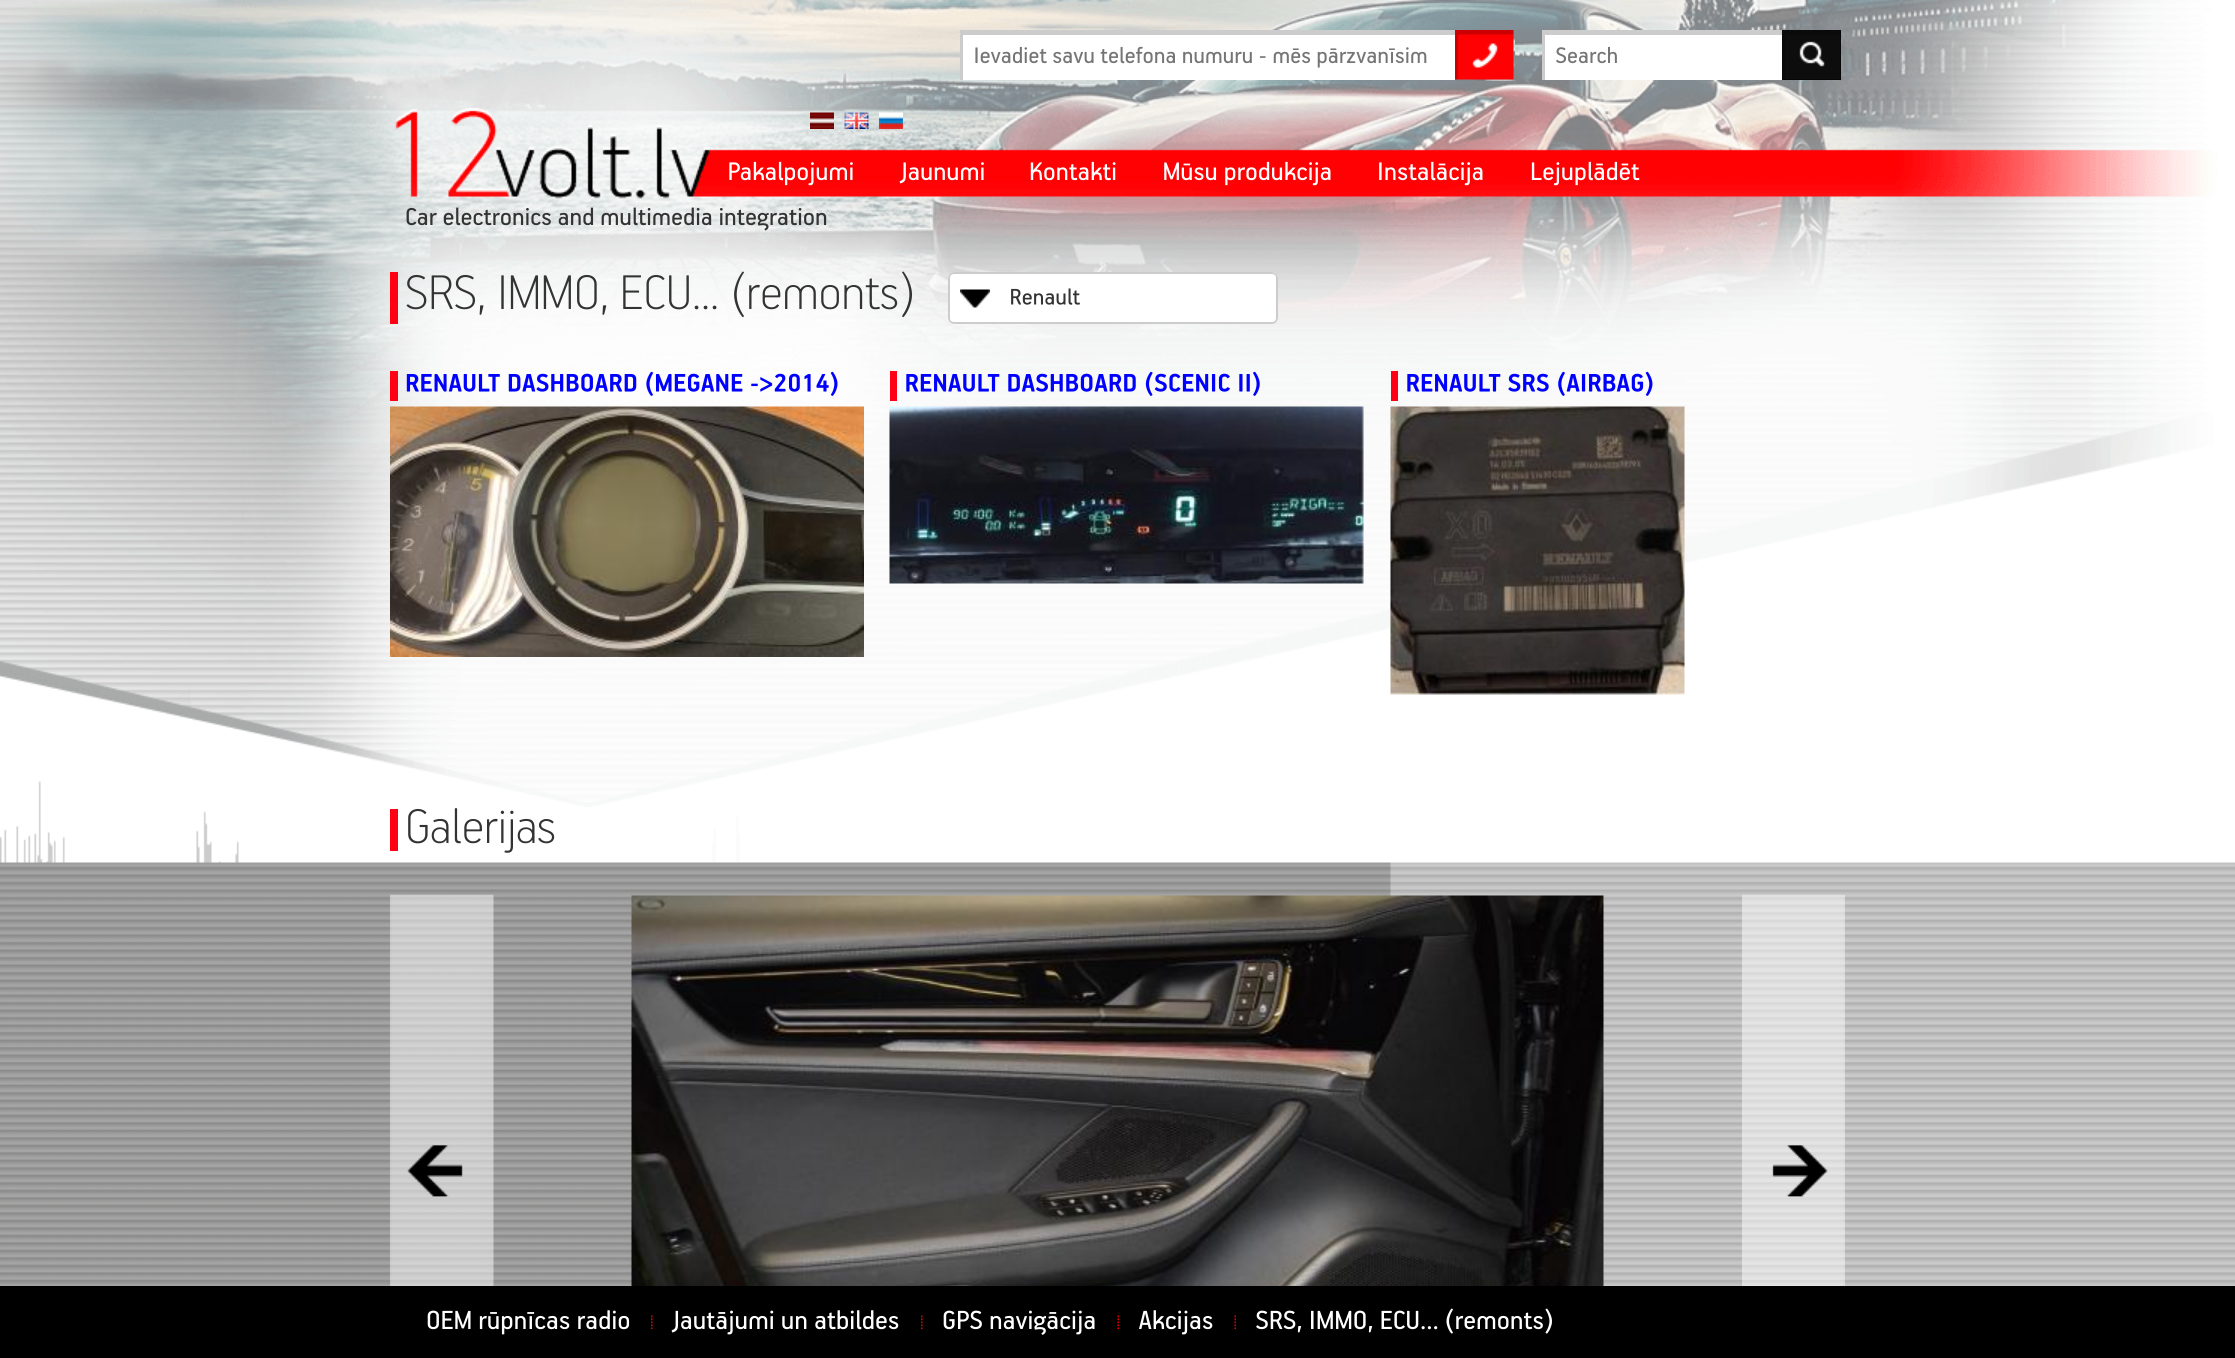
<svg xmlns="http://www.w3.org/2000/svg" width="2235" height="1358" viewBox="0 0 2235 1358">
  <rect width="100%" height="100%" fill="#fff"/>
  <image x="0" y="0" width="2235" height="863" href="images/1.png"/>
  <rect x="963" y="35" width="492" height="45" fill="#fff"/>
  <rect x="960" y="30" width="495" height="5" fill="#ccc"/>
  <rect x="960" y="30" width="3" height="50" fill="#ccc"/>
  <image x="975" y="46" width="452" height="22" href="images/2.png"/>
  <image x="1455" y="30" width="60" height="51" href="images/3.png"/>
  <rect x="1545" y="35" width="237" height="45" fill="#fff"/>
  <rect x="1542" y="30" width="240" height="5" fill="#ccc"/>
  <rect x="1542" y="30" width="3" height="50" fill="#ccc"/>
  <image x="1556" y="46" width="61" height="18" href="images/4.png"/>
  <rect x="1782" y="30" width="59" height="50" fill="#000"/>
  <image x="1782" y="30" width="59" height="50" href="images/5.png"/>
  <image x="810" y="112" width="24" height="17" href="images/6.png"/>
  <image x="844" y="112" width="25" height="17" href="images/7.png"/>
  <image x="879" y="112" width="24" height="17" href="images/8.png"/>
  <image x="729" y="161" width="124" height="25" href="images/9.png"/>
  <image x="899" y="162" width="85" height="22" href="images/10.png"/>
  <image x="1030" y="161" width="86" height="20" href="images/11.png"/>
  <image x="1164" y="161" width="167" height="25" href="images/12.png"/>
  <image x="1379" y="161" width="104" height="25" href="images/13.png"/>
  <image x="1531" y="161" width="109" height="25" href="images/14.png"/>
  <image x="406" y="207" width="421" height="24" href="images/15.png"/>
  <rect x="390" y="272" width="8" height="52" fill="#ff0014"/>
  <image x="406" y="271" width="506" height="47" href="images/16.png"/>
  <rect x="948" y="272" width="330" height="52" rx="6" fill="#fff"/>
  <image x="960" y="289" width="30" height="19" href="images/17.png"/>
  <rect x="949" y="273" width="328" height="50" rx="5" fill="none" stroke="#ccc" stroke-width="2"/>
  <image x="1011" y="288" width="69" height="17" href="images/18.png"/>
  <rect x="390" y="371" width="8" height="30" fill="#ff0014"/>
  <image x="406" y="371" width="432" height="25" href="images/19.png"/>
  <image x="390" y="406" width="474" height="251" href="images/20.png"/>
  <rect x="890" y="371" width="7" height="30" fill="#ff0014"/>
  <image x="906" y="371" width="354" height="25" href="images/21.png"/>
  <image x="889" y="406" width="475" height="178" href="images/22.png"/>
  <rect x="1391" y="371" width="7" height="30" fill="#ff0014"/>
  <image x="1407" y="371" width="246" height="25" href="images/23.png"/>
  <image x="1390" y="406" width="295" height="289" href="images/24.png"/>
  <image x="0" y="862" width="2235" height="424" href="images/25.png"/>
  <rect x="390" y="809" width="8" height="42" fill="#ff0014"/>
  <image x="408" y="808" width="147" height="45" href="images/26.png"/>
  <image x="390" y="894" width="104" height="392" href="images/27.png"/>
  <image x="631" y="895" width="973" height="391" href="images/28.png"/>
  <image x="1742" y="894" width="103" height="392" href="images/29.png"/>
  <rect x="0" y="1286" width="2235" height="72" fill="#000"/>
  <image x="427" y="1310" width="203" height="25" href="images/30.png"/>
  <image x="651" y="1315" width="2" height="14" href="images/31.png"/>
  <image x="671" y="1310" width="228" height="25" href="images/32.png"/>
  <image x="921" y="1315" width="2" height="14" href="images/31.png"/>
  <image x="943" y="1310" width="152" height="25" href="images/33.png"/>
  <image x="1117" y="1315" width="2" height="14" href="images/34.png"/>
  <image x="1139" y="1310" width="74" height="25" href="images/35.png"/>
  <image x="1234" y="1315" width="2" height="14" href="images/34.png"/>
  <image x="1256" y="1308" width="296" height="26" href="images/36.png"/>
</svg>
